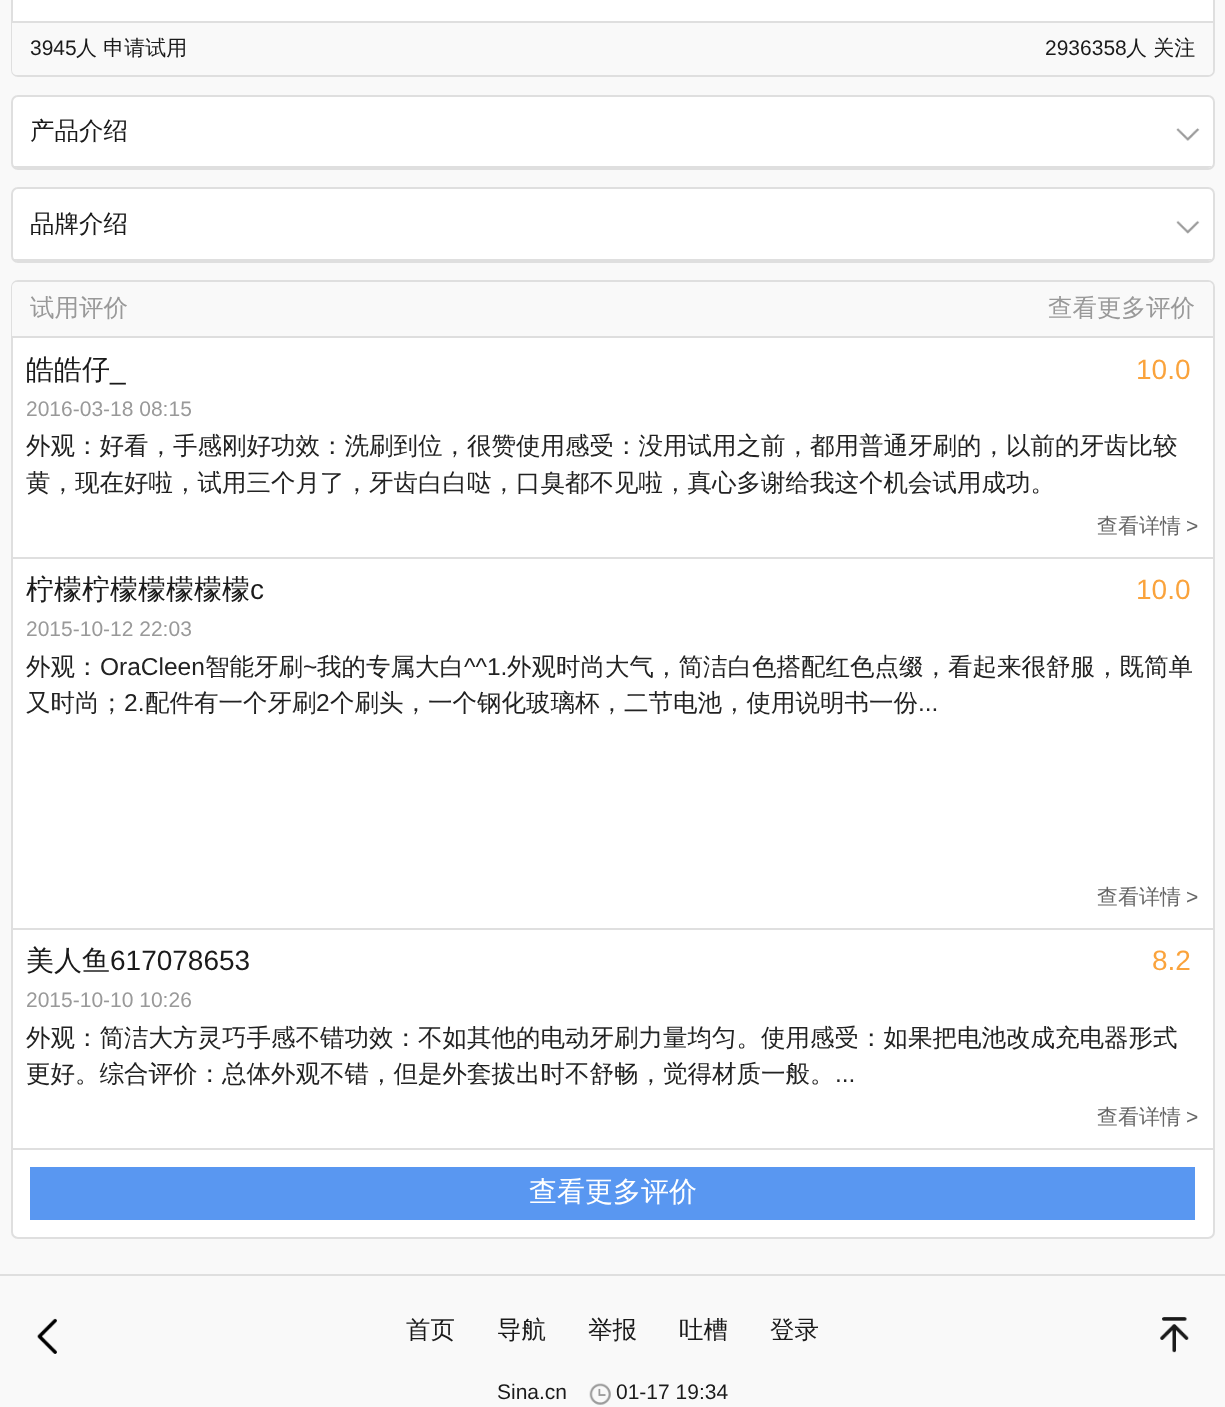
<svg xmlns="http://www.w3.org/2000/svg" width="1225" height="1407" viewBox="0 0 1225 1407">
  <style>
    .t1 { font: 21px Liberation Sans; fill: #1a1a1a; }
    .t2 { font: 500 21px WenQuanYi Zen Hei; fill: #1a1a1a; }
    .t3 { font: 500 24.5px WenQuanYi Zen Hei; fill: #1a1a1a; }
    .t4 { font: 500 24.5px WenQuanYi Zen Hei; fill: #999; }
    .t5 { font: 500 28px WenQuanYi Zen Hei; fill: #1a1a1a; }
    .t6 { font: 28px Liberation Sans; fill: #1a1a1a; }
    .t7 { font: 28px Liberation Sans; fill: #faa33c; }
    .t8 { font: 21px Liberation Sans; fill: #999; }
    .t9 { font: 500 24.5px WenQuanYi Zen Hei; fill: #222; }
    .t10 { font: 500 21px WenQuanYi Zen Hei; fill: #666; }
    .t11 { font: 21px Liberation Sans; fill: #666; }
    .t12 { font: 24.5px Liberation Sans; fill: #222; }
    .t13 { font: 500 28px WenQuanYi Zen Hei; fill: #fff; }
  </style>
  <defs>
    <clipPath id="clip1"><rect x="12" y="96" width="1201" height="72" rx="5"/></clipPath>
    <clipPath id="clip2"><rect x="12" y="189" width="1201" height="72" rx="5"/></clipPath>
  </defs>
  <rect width="100%" height="100%" fill="#f9f9f9"/>
  <rect x="12" y="-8" width="1202" height="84" rx="6" fill="#fff" stroke="#dfdfdf" stroke-width="2"/>
  <path d="M12 21H1213V70C1213 73 1211 75 1208 75H17C14 75 12 73 12 70Z" fill="#f9f9f9"/>
  <rect x="12" y="21" width="1201" height="2" fill="#dfdfdf"/>
  <text x="30" y="55" class="t1">3945</text>
  <text x="76" y="55" class="t2">人 申请试用</text>
  <text x="1045" y="55" class="t1">2936358</text>
  <text x="1126" y="55" class="t2">人 关注</text>
  <rect x="12" y="96" width="1202" height="73" rx="6" fill="#fff" stroke="#dfdfdf" stroke-width="2"/>
  <image x="1176" y="128" width="24" height="13" href="images/1.png"/>
  <g clip-path="url(#clip1)">
    <rect x="12" y="166" width="1201" height="2" fill="#dfdfdf"/>
  </g>
  <text x="30" y="139" class="t3">产品介绍</text>
  <rect x="12" y="188" width="1202" height="74" rx="6" fill="#fff" stroke="#dfdfdf" stroke-width="2"/>
  <image x="1176" y="220" width="24" height="14" href="images/2.png"/>
  <g clip-path="url(#clip2)">
    <rect x="12" y="259" width="1201" height="2" fill="#dfdfdf"/>
  </g>
  <text x="30" y="232" class="t3">品牌介绍</text>
  <rect x="12" y="281" width="1202" height="957" rx="6" fill="#fff" stroke="#dfdfdf" stroke-width="2"/>
  <path d="M17 282H1208C1211 282 1213 284 1213 287V338H12V287C12 284 14 282 17 282Z" fill="#f9f9f9"/>
  <rect x="12" y="336" width="1201" height="2" fill="#dedede"/>
  <text x="30" y="316" class="t4">试用评价</text>
  <text x="1048" y="316" class="t4">查看更多评价</text>
  <rect x="12" y="557" width="1201" height="2" fill="#dfdfdf"/>
  <text x="26" y="379" class="t5">皓皓仔</text>
  <text x="110" y="379" class="t6">_</text>
  <text x="1136" y="379" class="t7">10.0</text>
  <text x="26" y="416" class="t8">2016-03-18 08:15</text>
  <text x="26" y="454" class="t9">外观：好看，手感刚好功效：洗刷到位，很赞使用感受：没用试用之前，都用普通牙刷的，以前的牙齿比较</text>
  <text x="26" y="491" class="t9">黄，现在好啦，试用三个月了，牙齿白白哒，口臭都不见啦，真心多谢给我这个机会试用成功。</text>
  <text x="1097" y="533" class="t10">查看详情</text>
  <text x="1186" y="533" class="t11">&gt;</text>
  <rect x="12" y="928" width="1201" height="2" fill="#dfdfdf"/>
  <text x="26" y="599" class="t5">柠檬柠檬檬檬檬檬</text>
  <text x="250" y="599" class="t6">c</text>
  <text x="1136" y="599" class="t7">10.0</text>
  <text x="26" y="636" class="t8">2015-10-12 22:03</text>
  <text x="26" y="675" class="t9">外观：</text>
  <text x="100" y="675" class="t12">OraCleen</text>
  <text x="205" y="675" class="t9">智能牙刷</text>
  <text x="303" y="675" class="t12">~</text>
  <text x="317" y="675" class="t9">我的专属大白</text>
  <text x="464" y="675" class="t12">^^1.</text>
  <text x="507" y="675" class="t9">外观时尚大气，简洁白色搭配红色点缀，看起来很舒服，既简单</text>
  <text x="26" y="711" class="t9">又时尚；</text>
  <text x="124" y="711" class="t12">2.</text>
  <text x="145" y="711" class="t9">配件有一个牙刷</text>
  <text x="316" y="711" class="t12">2</text>
  <text x="330" y="711" class="t9">个刷头，一个钢化玻璃杯，二节电池，使用说明书一份</text>
  <text x="918" y="711" class="t12">...</text>
  <text x="1097" y="904" class="t10">查看详情</text>
  <text x="1186" y="904" class="t11">&gt;</text>
  <rect x="12" y="1148" width="1201" height="2" fill="#dfdfdf"/>
  <text x="26" y="970" class="t5">美人鱼</text>
  <text x="110" y="970" class="t6">617078653</text>
  <text x="1152" y="970" class="t7">8.2</text>
  <text x="26" y="1007" class="t8">2015-10-10 10:26</text>
  <text x="26" y="1046" class="t9">外观：简洁大方灵巧手感不错功效：不如其他的电动牙刷力量均匀。使用感受：如果把电池改成充电器形式</text>
  <text x="26" y="1082" class="t9">更好。综合评价：总体外观不错，但是外套拔出时不舒畅，觉得材质一般。</text>
  <text x="835" y="1082" class="t12">...</text>
  <text x="1097" y="1124" class="t10">查看详情</text>
  <text x="1186" y="1124" class="t11">&gt;</text>
  <rect x="30" y="1167" width="1165" height="53" fill="#5997f1"/>
  <text x="529" y="1201" class="t13">查看更多评价</text>
  <rect x="0" y="1274" width="1225" height="2" fill="#dfdfdf"/>
  <image x="37" y="1318" width="20" height="37" href="images/3.png"/>
  <text x="406" y="1338" class="t3">首页</text>
  <text x="497" y="1338" class="t3">导航</text>
  <text x="588" y="1338" class="t3">举报</text>
  <text x="679" y="1338" class="t3">吐槽</text>
  <text x="770" y="1338" class="t3">登录</text>
  <image x="1160" y="1317" width="29" height="36" href="images/4.png"/>
  <text x="497" y="1399" class="t1">Sina.cn</text>
  <image x="589" y="1383" width="22" height="22" href="images/5.png"/>
  <text x="616" y="1399" class="t1">01-17 19:34</text>
</svg>
